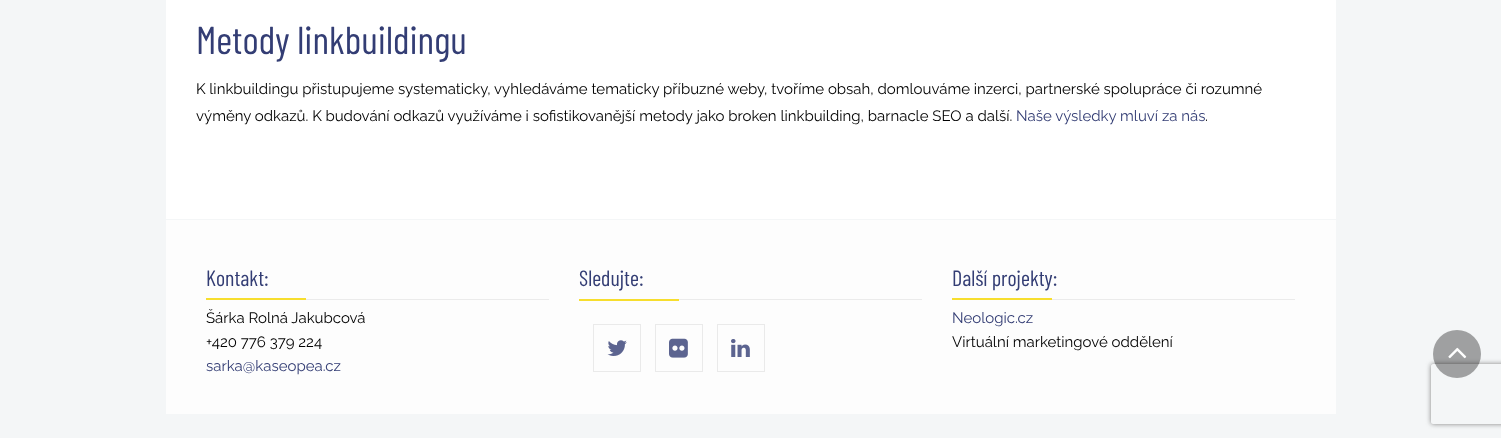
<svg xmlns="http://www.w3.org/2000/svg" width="1501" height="438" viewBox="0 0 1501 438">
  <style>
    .t1 { font: 39px Barlow Condensed; fill: #333d74; }
    .t2 { font: 15px Raleway; fill: #000; }
    .t3 { font: 15px Raleway; fill: #333d74; }
    .t4 { font: 22px Barlow Condensed; fill: #333d74; }
  </style>
  <defs>
    <clipPath id="clip1"><path d="M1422 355H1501V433H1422ZM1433 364H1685C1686 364 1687 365 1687 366V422C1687 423 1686 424 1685 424H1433C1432 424 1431 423 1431 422V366C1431 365 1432 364 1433 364Z" clip-rule="evenodd"/></clipPath>
  </defs>
  <rect width="100%" height="100%" fill="#f4f6f7"/>
  <rect x="166" y="0" width="1170" height="219" fill="#fff"/>
  <text x="196" y="54" class="t1">Metody linkbuildingu</text>
  <text x="196" y="94" class="t2">K linkbuildingu přistupujeme systematicky, vyhledáváme tematicky příbuzné weby, tvoříme obsah, domlouváme inzerci, partnerské spolupráce či rozumné</text>
  <text x="196" y="121" class="t2">výměny odkazů. K budování odkazů využíváme i sofistikovanější metody jako broken linkbuilding, barnacle SEO a další.</text>
  <text x="1016" y="121" class="t3">Naše výsledky mluví za nás</text>
  <text x="1205" y="121" class="t2">.</text>
  <rect x="166" y="220" width="1170" height="194" fill="#fdfdfd"/>
  <rect x="306" y="299" width="243" height="1" fill="#ebebeb"/>
  <text x="206" y="286" class="t4">Kontakt:</text>
  <rect x="206" y="298" width="100" height="2" fill="#f7de2e"/>
  <text x="206" y="323" class="t2">Šárka Rolná Jakubcová</text>
  <text x="206" y="347" class="t2">+420 776 379 224</text>
  <text x="206" y="371" class="t3">sarka@kaseopea.cz</text>
  <rect x="679" y="299" width="243" height="1" fill="#ebebeb"/>
  <text x="579" y="286" class="t4">Sledujte:</text>
  <rect x="579" y="299" width="100" height="2" fill="#f7de2e"/>
  <rect x="593.5" y="324.5" width="47" height="47" fill="none" stroke="#eaeaea"/>
  <image x="607" y="340" width="20" height="16" href="images/1.png"/>
  <rect x="655.5" y="324.5" width="47" height="47" fill="none" stroke="#eaeaea"/>
  <image x="669" y="338" width="19" height="20" href="images/2.png"/>
  <rect x="717.5" y="324.5" width="47" height="47" fill="none" stroke="#eaeaea"/>
  <image x="731" y="339" width="19" height="18" href="images/3.png"/>
  <rect x="1052" y="299" width="243" height="1" fill="#ebebeb"/>
  <text x="952" y="286" class="t4">Další projekty:</text>
  <rect x="952" y="298" width="100" height="2" fill="#f7de2e"/>
  <text x="952" y="323" class="t3">Neologic.cz</text>
  <text x="952" y="347" class="t2">Virtuální marketingové oddělení</text>
  <g clip-path="url(#clip1)">
    <rect x="1431" y="364" width="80" height="60" rx="2" fill="#808080" filter="blur(2.5px)"/>
  </g>
  <circle cx="1457" cy="354" r="24" fill="#00000059"/>
  <image x="1448" y="347" width="19" height="12" href="images/4.png"/>
</svg>
